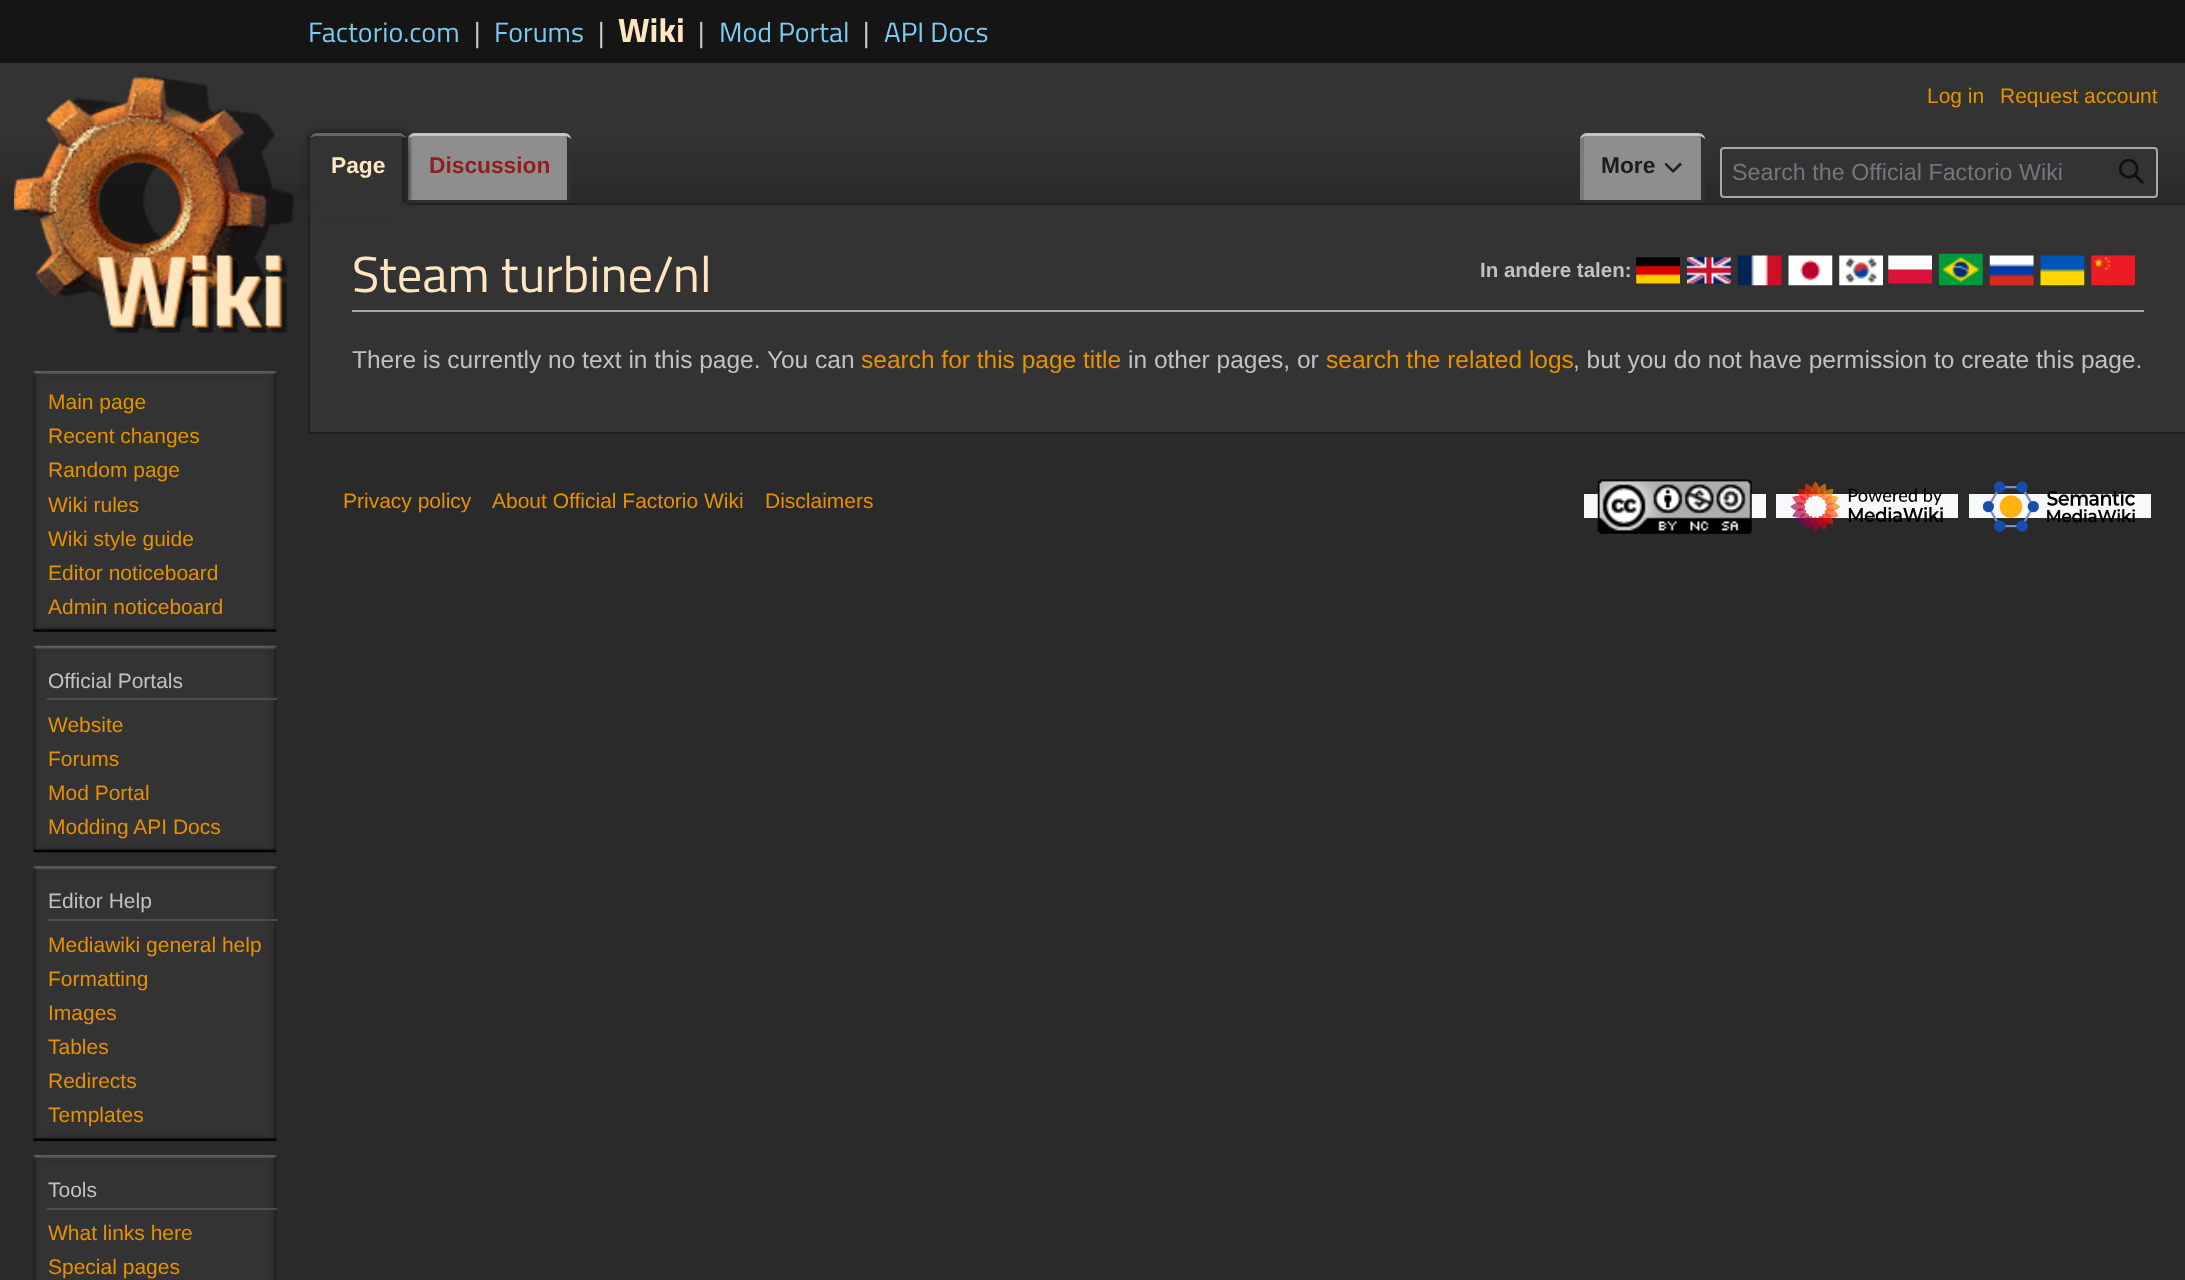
<svg xmlns="http://www.w3.org/2000/svg" width="2185" height="1280" viewBox="0 0 2185 1280">
  <style>
    .t1 { font: 28px Titillium Web; fill: #7dcaed; }
    .t2 { font: 28px Titillium Web; fill: #ccc; }
    .t3 { font: bold 34px Titillium Web; fill: #ffe6c0; }
    .t4 { font: 21px Liberation Sans; fill: #e69100; }
    .t5 { font: bold 22.75px Liberation Sans; fill: #ffe6c0; }
    .t6 { font: bold 22.75px Liberation Sans; fill: #911d1d; }
    .t7 { font: bold 22.75px Liberation Sans; fill: #1d1c1d; }
    .t8 { font: 23.3px Liberation Sans; fill: #72777d; }
    .t9 { font: 21px Liberation Sans; fill: #c1c1c1; }
    .t10 { font: 50.5px Titillium Web; fill: #ffe6c0; }
    .t11 { font: bold 20.5px Liberation Sans; fill: #c1c1c1; }
    .t12 { font: 24.5px Liberation Sans; fill: #c1c1c1; }
    .t13 { font: 24.5px Liberation Sans; fill: #e69100; }
  </style>
  <defs>
    <linearGradient id="g1" gradientUnits="userSpaceOnUse" x1="1093" y1="63" x2="1093" y2="203"><stop offset="0.5" stop-color="#333"/><stop offset="1" stop-color="#2a2a2a"/></linearGradient>
    <linearGradient id="g2" gradientUnits="userSpaceOnUse" x1="309" y1="133" x2="309" y2="203"><stop offset="0.05" stop-color="#333"/><stop offset="0.6" stop-color="#1f1f1f"/></linearGradient>
  </defs>
  <rect width="100%" height="100%" fill="#2a2a2a"/>
  <rect x="0" y="0" width="2185" height="63" fill="#151515"/>
  <text x="308" y="42" class="t1">Factorio.com</text>
  <text x="474" y="42" class="t2">|</text>
  <text x="494" y="42" class="t1">Forums</text>
  <text x="598" y="42" class="t2">|</text>
  <text x="618" y="42" class="t3">Wiki</text>
  <text x="698" y="42" class="t2">|</text>
  <text x="719" y="42" class="t1">Mod Portal</text>
  <text x="863" y="42" class="t2">|</text>
  <text x="884" y="42" class="t1">API Docs</text>
  <rect x="0" y="63" width="2185" height="121" fill="url(#g1)"/>
  <text x="1927" y="103" class="t4">Log in</text>
  <text x="2000" y="103" class="t4">Request account</text>
  <rect x="308" y="143" width="2" height="60" fill="url(#g2)"/>
  <rect x="310" y="152" width="96" height="53" fill="#333"/>
  <path d="M415 133H564C568 133 571 136 571 140V203H408V140C408 136 411 133 415 133Z" fill="#8e8e8e"/>
  <path d="M414 133C411 134 408 137 408 140V203H411V140C411 137 412 135 414 133Z" fill="#7a7a7a"/>
  <path d="M567 203H571V140C571 136 568 133 564 133C566 135 567 137 567 140Z" fill="#372f2a"/>
  <rect x="408" y="200" width="163" height="3" fill="#2d2d2d"/>
  <path d="M415 136H564C567 136 569 137 571 139C571 136 568 133 564 133H415C412 133 409 135 408 138C410 137 412 136 415 136Z" fill="#c5c5c5"/>
  <rect x="310" y="205" width="1875" height="227" fill="#333"/>
  <rect x="406" y="203" width="1779" height="2" fill="#1f1f1f"/>
  <rect x="308" y="432" width="1877" height="2" fill="#1f1f1f"/>
  <rect x="308" y="203" width="2" height="231" fill="#1f1f1f"/>
  <rect x="310" y="133" width="96" height="70" rx="7" fill="#101010" filter="blur(3.5px)"/>
  <rect x="310" y="144" width="96" height="70" rx="7" fill="#333" filter="blur(3.5px)"/>
  <path d="M317 133H399C403 133 406 136 406 140V203H310V140C310 136 313 133 317 133Z" fill="#333"/>
  <path d="M402 203H406V140C406 136 403 133 400 133C401 135 402 137 402 140Z" fill="#262220"/>
  <path d="M317 136H399C402 136 404 137 406 138C405 135 402 133 399 133H317C314 133 311 135 310 138C312 137 314 136 317 136Z" fill="#686665"/>
  <text x="331" y="173" class="t5">Page</text>
  <text x="429" y="173" class="t6">Discussion</text>
  <path d="M1587 133H1698C1702 133 1705 136 1705 140V203H1580V140C1580 136 1583 133 1587 133Z" fill="#8e8e8e"/>
  <path d="M1701 203H1705V140C1705 136 1702 133 1698 133C1700 135 1701 137 1701 140Z" fill="#372f2a"/>
  <path d="M1586 133C1583 133 1580 136 1580 140V203H1584V140C1584 137 1585 135 1586 133Z" fill="#7a7a7a"/>
  <rect x="1580" y="200" width="125" height="3" fill="#2d2d2d"/>
  <path d="M1587 136H1698C1701 136 1703 137 1705 139C1705 136 1702 133 1698 133H1587C1584 133 1581 136 1580 139C1582 137 1584 136 1587 136Z" fill="#c5c5c5"/>
  <text x="1601" y="173" class="t7">More</text>
  <path d="M1682 164.5L1680 162.5L1673 169.5L1666 162.5L1664.5 164.5L1673 173Z" fill="#202122"/>
  <rect x="1721" y="148" width="436" height="49" rx="3" fill="#333" stroke="#a2a9b1" stroke-width="2"/>
  <text x="1732" y="180" class="t8">Search the Official Factorio Wiki</text>
  <image x="2119" y="159" width="25" height="25" href="images/1.png"/>
  <image x="14" y="75" width="280" height="258" href="images/2.png"/>
  <rect x="33" y="371" width="244" height="261" fill="#333"/>
  <image x="33" y="371" width="244" height="261" href="images/3.png"/>
  <text x="48" y="409" class="t4">Main page</text>
  <text x="48" y="443" class="t4">Recent changes</text>
  <text x="48" y="477" class="t4">Random page</text>
  <text x="48" y="512" class="t4">Wiki rules</text>
  <text x="48" y="546" class="t4">Wiki style guide</text>
  <text x="48" y="580" class="t4">Editor noticeboard</text>
  <text x="48" y="614" class="t4">Admin noticeboard</text>
  <rect x="33" y="646" width="244" height="206" fill="#333"/>
  <image x="33" y="645" width="244" height="208" href="images/4.png"/>
  <rect x="47" y="698" width="230" height="2" fill="#4c4c4c"/>
  <text x="48" y="688" class="t9">Official Portals</text>
  <text x="48" y="732" class="t4">Website</text>
  <text x="48" y="766" class="t4">Forums</text>
  <text x="48" y="800" class="t4">Mod Portal</text>
  <text x="48" y="834" class="t4">Modding API Docs</text>
  <rect x="33" y="866" width="244" height="275" fill="#333"/>
  <image x="33" y="866" width="244" height="275" href="images/5.png"/>
  <rect x="47" y="919" width="230" height="2" fill="#4c4c4c"/>
  <text x="48" y="908" class="t9">Editor Help</text>
  <text x="48" y="952" class="t4">Mediawiki general help</text>
  <text x="48" y="986" class="t4">Formatting</text>
  <text x="48" y="1020" class="t4">Images</text>
  <text x="48" y="1054" class="t4">Tables</text>
  <text x="48" y="1088" class="t4">Redirects</text>
  <text x="48" y="1122" class="t4">Templates</text>
  <rect x="33" y="1155" width="244" height="125" fill="#333"/>
  <image x="33" y="1155" width="244" height="125" href="images/6.png"/>
  <rect x="47" y="1208" width="230" height="2" fill="#4c4c4c"/>
  <text x="48" y="1197" class="t9">Tools</text>
  <text x="48" y="1240" class="t4">What links here</text>
  <text x="48" y="1274" class="t4">Special pages</text>
  <rect x="352" y="310" width="1792" height="2" fill="#a2a9b1"/>
  <text x="352" y="292" class="t10">Steam turbine/nl</text>
  <text x="1480" y="277" class="t11">In andere talen:</text>
  <image x="1636" y="257" width="44" height="27" href="images/7.png"/>
  <image x="1687" y="257" width="44" height="27" href="images/8.png"/>
  <image x="1737" y="255" width="45" height="31" href="images/9.png"/>
  <image x="1788" y="255" width="45" height="31" href="images/10.png"/>
  <image x="1839" y="255" width="44" height="31" href="images/11.png"/>
  <image x="1888" y="255" width="44" height="29" href="images/12.png"/>
  <image x="1939" y="253" width="44" height="33" href="images/13.png"/>
  <image x="1989" y="255" width="45" height="31" href="images/14.png"/>
  <image x="2040" y="255" width="45" height="31" href="images/15.png"/>
  <image x="2091" y="255" width="44" height="31" href="images/16.png"/>
  <text x="352" y="368" class="t12">There is currently no text in this page. You can</text>
  <text x="861" y="368" class="t13">search for this page title</text>
  <text x="1128" y="368" class="t12">in other pages, or</text>
  <text x="1326" y="368" class="t13">search the related logs</text>
  <text x="1573" y="368" class="t12">, but you do not have permission to create this page.</text>
  <text x="343" y="508" class="t4">Privacy policy</text>
  <text x="492" y="508" class="t4">About Official Factorio Wiki</text>
  <text x="765" y="508" class="t4">Disclaimers</text>
  <rect x="1584" y="494" width="182" height="24" fill="#f8f9fa"/>
  <image x="1597" y="479" width="155" height="55" href="images/17.png"/>
  <rect x="1776" y="494" width="182" height="24" fill="#f8f9fa"/>
  <image x="1790" y="481" width="153" height="51" href="images/18.png"/>
  <rect x="1969" y="494" width="182" height="24" fill="#f8f9fa"/>
  <image x="1983" y="481" width="152" height="51" href="images/19.png"/>
</svg>
